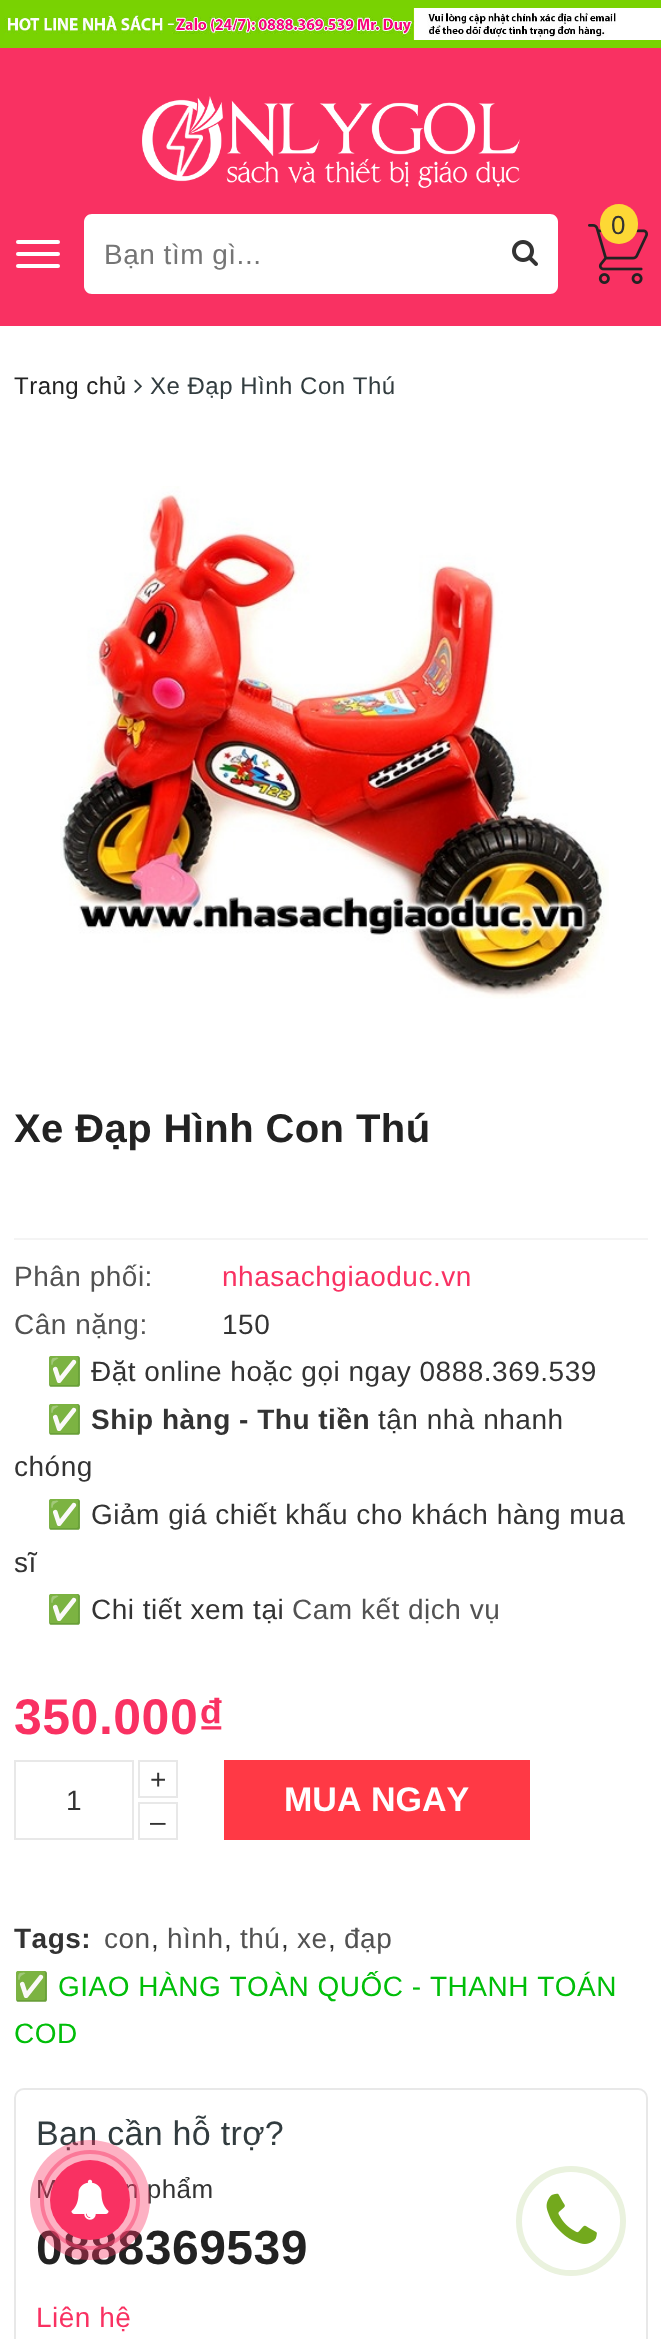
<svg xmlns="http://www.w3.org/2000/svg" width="661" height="2339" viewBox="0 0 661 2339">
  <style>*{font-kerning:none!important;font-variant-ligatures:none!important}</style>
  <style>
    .t1 { font: 26px Liberation Sans; letter-spacing: 0.5px; fill: #333; }
    .t2 { font: 28px Liberation Sans; letter-spacing: 0.5px; fill: #757575; }
    .t3 { font: 24px Liberation Sans; letter-spacing: 0.5px; fill: #222; }
    .t4 { font: 24px Liberation Sans; letter-spacing: 0.5px; fill: #323c3f; }
    .t5 { font: bold 40px Liberation Sans; letter-spacing: 0.4px; fill: #222; }
    .t6 { font: 28px Liberation Sans; letter-spacing: 0.5px; fill: #525252; }
    .t7 { font: 28px Liberation Sans; letter-spacing: 0.5px; fill: #f93162; }
    .t8 { font: 28px Liberation Sans; letter-spacing: 0.5px; fill: #333; }
    .t9 { font: 28px Noto Color Emoji; letter-spacing: 0.5px; fill: #333; }
    .t10 { font: bold 28px Liberation Sans; letter-spacing: 0.5px; fill: #333; }
    .t11 { font: bold 50px Liberation Sans; letter-spacing: 0.5px; fill: #f93162; }
    .t12 { font: bold 34px Liberation Sans; fill: #fff; }
    .t13 { font: 28px Noto Color Emoji; letter-spacing: 0.5px; fill: #00be09; }
    .t14 { font: 28px Liberation Sans; letter-spacing: 0.5px; fill: #00be09; }
    .t15 { font: 34px Liberation Sans; letter-spacing: 0.3px; fill: #323c3f; }
    .t16 { font: bold 48px Liberation Sans; letter-spacing: 0.5px; fill: #222; }
  </style>
  <rect width="100%" height="100%" fill="#fff"/>
  <rect x="0" y="48" width="661" height="278" fill="#f93162"/>
  <rect x="0" y="0" width="661" height="48" fill="#79d202"/>
  <image x="4" y="8" width="657" height="32" href="images/1.png"/>
  <image x="142" y="96" width="378" height="92" href="images/2.png"/>
  <image x="588" y="224" width="60" height="60" href="images/3.png"/>
  <rect x="600" y="204" width="38" height="40" rx="19" fill="#fdd835"/>
  <text x="611" y="234" class="t1">0</text>
  <rect x="16" y="240" width="44" height="4" rx="2" fill="#fff"/>
  <rect x="16" y="252" width="44" height="4" rx="2" fill="#fff"/>
  <rect x="16" y="264" width="44" height="4" rx="2" fill="#fff"/>
  <path d="M92 214H494V294H92C87.5 294 84 290.5 84 286V222C84 217.5 87.5 214 92 214Z" fill="#fff"/>
  <text x="104" y="264" class="t2">Bạn tìm gì...</text>
  <path d="M492 214H550C554.5 214 558 217.5 558 222V286C558 290.5 554.5 294 550 294H492Z" fill="#fff"/>
  <image x="512" y="240" width="26" height="26" href="images/4.png"/>
  <text x="14" y="394" class="t3">Trang chủ</text>
  <image x="134" y="379" width="8" height="14" href="images/5.png"/>
  <text x="150" y="394" class="t4">Xe Đạp Hình Con Thú</text>
  <image x="60" y="486" width="549" height="513" href="images/6.png"/>
  <text x="14" y="1142" class="t5">Xe Đạp Hình Con Thú</text>
  <rect x="14" y="1238" width="634" height="2" fill="#f4f4f4"/>
  <text x="14" y="1286" class="t6">Phân phối:</text>
  <text x="222" y="1286" class="t7">nhasachgiaoduc.vn</text>
  <text x="14" y="1334" class="t6">Cân nặng:</text>
  <text x="222" y="1334" class="t8">150</text>
  <text x="47" y="1381" class="t9">✅</text>
  <text x="91" y="1381" class="t8">Đặt online hoặc gọi ngay 0888.369.539</text>
  <text x="47" y="1429" class="t9">✅</text>
  <text x="91" y="1429" class="t10">Ship hàng - Thu tiền</text>
  <text x="378" y="1429" class="t8">tận nhà nhanh</text>
  <text x="14" y="1476" class="t8">chóng</text>
  <text x="47" y="1524" class="t9">✅</text>
  <text x="91" y="1524" class="t8">Giảm giá chiết khấu cho khách hàng mua</text>
  <text x="14" y="1572" class="t8">sĩ</text>
  <text x="47" y="1619" class="t9">✅</text>
  <text x="91" y="1619" class="t8">Chi tiết xem tại</text>
  <text x="292" y="1619" class="t6">Cam kết dịch vụ</text>
  <text x="14" y="1734" class="t11">350.000₫</text>
  <rect x="15" y="1761" width="118" height="78" fill="none" stroke="#e8e8e8" stroke-width="2"/>
  <text x="66" y="1810" class="t8">1</text>
  <rect x="139" y="1761" width="38" height="36" fill="none" stroke="#e8e8e8" stroke-width="2"/>
  <text x="150" y="1789" class="t8">+</text>
  <rect x="139" y="1803" width="38" height="36" fill="none" stroke="#e8e8e8" stroke-width="2"/>
  <text x="150" y="1831" class="t8">–</text>
  <rect x="224" y="1760" width="306" height="80" fill="#ff3945"/>
  <text x="284" y="1811" class="t12">MUA NGAY</text>
  <text x="14" y="1948" class="t10">Tags:</text>
  <text x="104" y="1948" class="t6">con</text>
  <text x="151" y="1948" class="t8">,</text>
  <text x="167" y="1948" class="t6">hình</text>
  <text x="224" y="1948" class="t8">,</text>
  <text x="240" y="1948" class="t6">thú</text>
  <text x="281" y="1948" class="t8">,</text>
  <text x="297" y="1948" class="t6">xe</text>
  <text x="328" y="1948" class="t8">,</text>
  <text x="344" y="1948" class="t6">đạp</text>
  <text x="14" y="1996" class="t13">✅</text>
  <text x="58" y="1996" class="t14">GIAO HÀNG TOÀN QUỐC - THANH TOÁN</text>
  <text x="14" y="2043" class="t14">COD</text>
  <rect x="15" y="2089" width="632" height="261" rx="9" fill="none" stroke="#e8e8e8" stroke-width="2"/>
  <text x="36" y="2145" class="t15">Bạn cần hỗ trợ?</text>
  <text x="36" y="2198" class="t1">M</text>
  <text x="124" y="2198" class="t1">n phẩm</text>
  <text x="36" y="2264" class="t16">0888369539</text>
  <text x="36" y="2327" class="t7">Liên hệ</text>
  <circle cx="571" cy="2221" r="52" fill="none" stroke="#eaf2de" stroke-width="6"/>
  <image x="546" y="2193" width="51" height="51" href="images/7.png"/>
  <circle cx="90" cy="2200" r="48" fill="none" stroke="#fa4a7580" stroke-width="4"/>
  <circle cx="90" cy="2200" r="60" fill="#f9316261"/>
  <circle cx="90" cy="2200" r="40" fill="#f93162"/>
  <image x="71" y="2179" width="38" height="41" href="images/8.png"/>
</svg>
